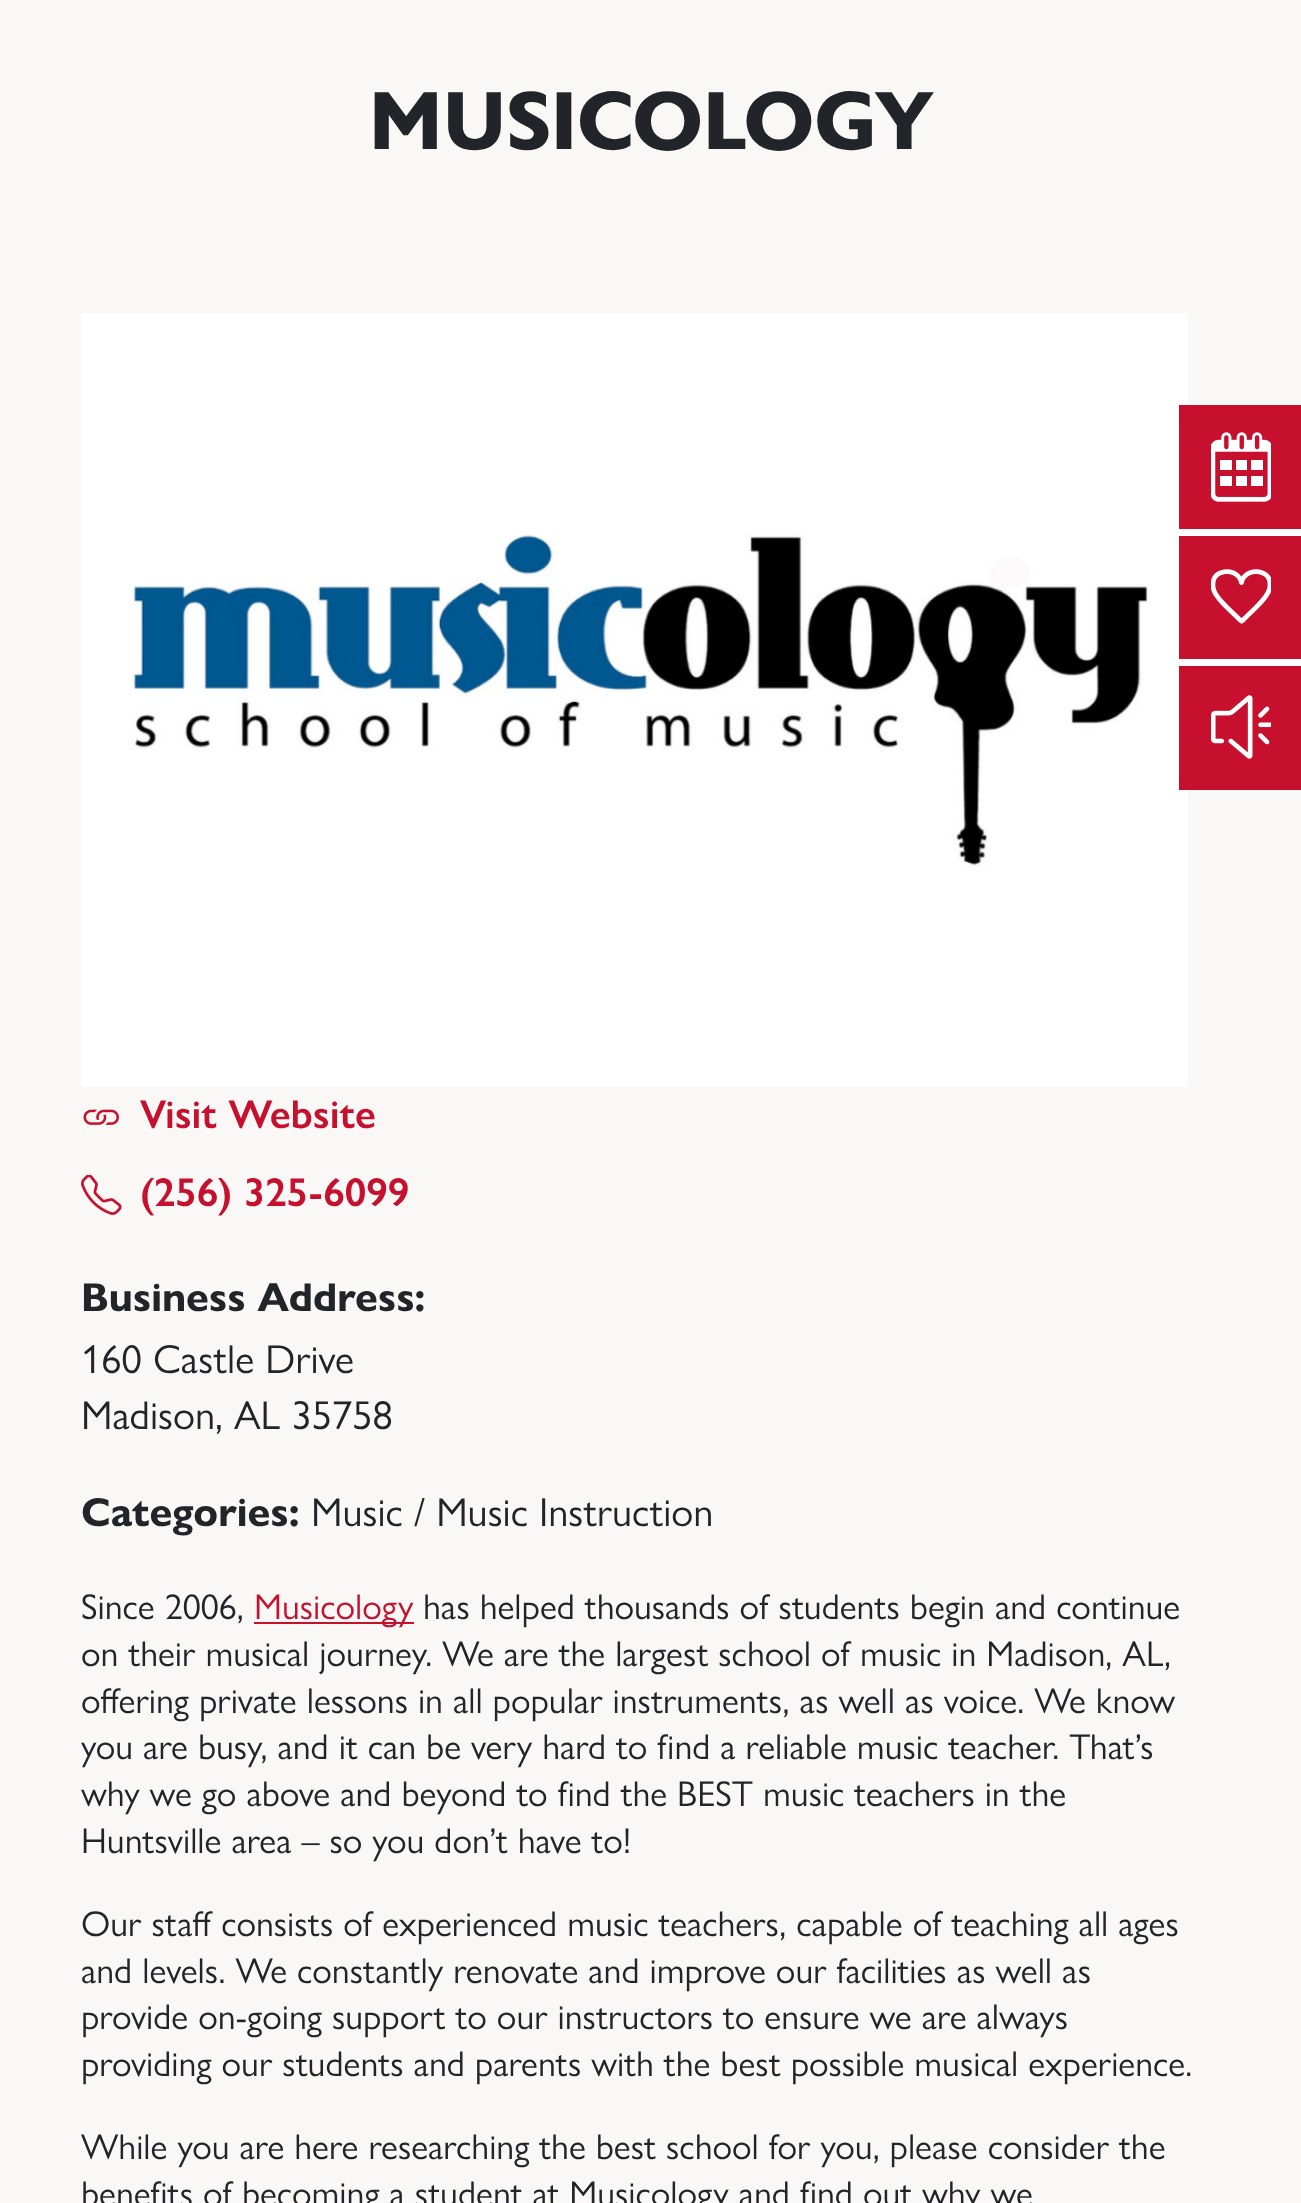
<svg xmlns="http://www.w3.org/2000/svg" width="1301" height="2203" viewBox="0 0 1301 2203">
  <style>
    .t1 { font: bold 81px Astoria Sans; fill: #212529; }
    .t2 { font: 600 40.5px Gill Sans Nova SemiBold; fill: #c7102d; }
    .t3 { font: bold 40.5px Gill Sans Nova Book; fill: #212529; }
    .t4 { font: 40.5px Gill Sans Nova Book; fill: #212529; }
    .t5 { font: 36px Gill Sans Nova Book; fill: #212529; }
    .t6 { font: 36px Gill Sans Nova Book; fill: #c7102d; }
  </style>
  <rect width="100%" height="100%" fill="#faf8f7"/>
  <text x="369" y="149" class="t1">MUSICOLOGY</text>
  <image x="81" y="313" width="1107" height="774" href="images/1.png"/>
  <image x="83" y="1109" width="36" height="16" href="images/2.png"/>
  <text x="140" y="1128" class="t2">Visit Website</text>
  <image x="81" y="1175" width="41" height="40" href="images/3.png"/>
  <text x="140" y="1206" class="t2">(256) 325-6099</text>
  <text x="81" y="1311" class="t3">Business Address:</text>
  <text x="81" y="1373" class="t4">160 Castle Drive</text>
  <text x="81" y="1429" class="t4">Madison, AL 35758</text>
  <text x="81" y="1526" class="t3">Categories:</text>
  <text x="311" y="1526" class="t4">Music / Music Instruction</text>
  <text x="81" y="1619" class="t5">Since 2006,</text>
  <rect x="254" y="1622" width="160" height="2" fill="#c7102d"/>
  <text x="254" y="1619" class="t6">Musicology</text>
  <text x="423" y="1619" class="t5">has helped thousands of students begin and continue</text>
  <text x="81" y="1666" class="t5">on their musical journey. We are the largest school of music in Madison, AL,</text>
  <text x="81" y="1713" class="t5">offering private lessons in all popular instruments, as well as voice. We know</text>
  <text x="81" y="1759" class="t5">you are busy, and it can be very hard to find a reliable music teacher. That’s</text>
  <text x="81" y="1806" class="t5">why we go above and beyond to find the BEST music teachers in the</text>
  <text x="81" y="1853" class="t5">Huntsville area – so you don’t have to!</text>
  <text x="81" y="1936" class="t5">Our staff consists of experienced music teachers, capable of teaching all ages</text>
  <text x="81" y="1983" class="t5">and levels. We constantly renovate and improve our facilities as well as</text>
  <text x="81" y="2029" class="t5">provide on-going support to our instructors to ensure we are always</text>
  <text x="81" y="2076" class="t5">providing our students and parents with the best possible musical experience.</text>
  <text x="81" y="2159" class="t5">While you are here researching the best school for you, please consider the</text>
  <text x="81" y="2206" class="t5">benefits of becoming a student at Musicology and find out why we</text>
  <rect x="1188" y="529" width="113" height="7" fill="#fff"/>
  <rect x="1179" y="405" width="122" height="124" fill="#c7102d"/>
  <image x="1211" y="432" width="60" height="70" href="images/4.png"/>
  <rect x="1188" y="659" width="113" height="7" fill="#fff"/>
  <rect x="1179" y="536" width="122" height="123" fill="#c7102d"/>
  <image x="1211" y="569" width="60" height="55" href="images/5.png"/>
  <rect x="1179" y="666" width="122" height="124" fill="#c7102d"/>
  <image x="1211" y="695" width="60" height="64" href="images/6.png"/>
</svg>
